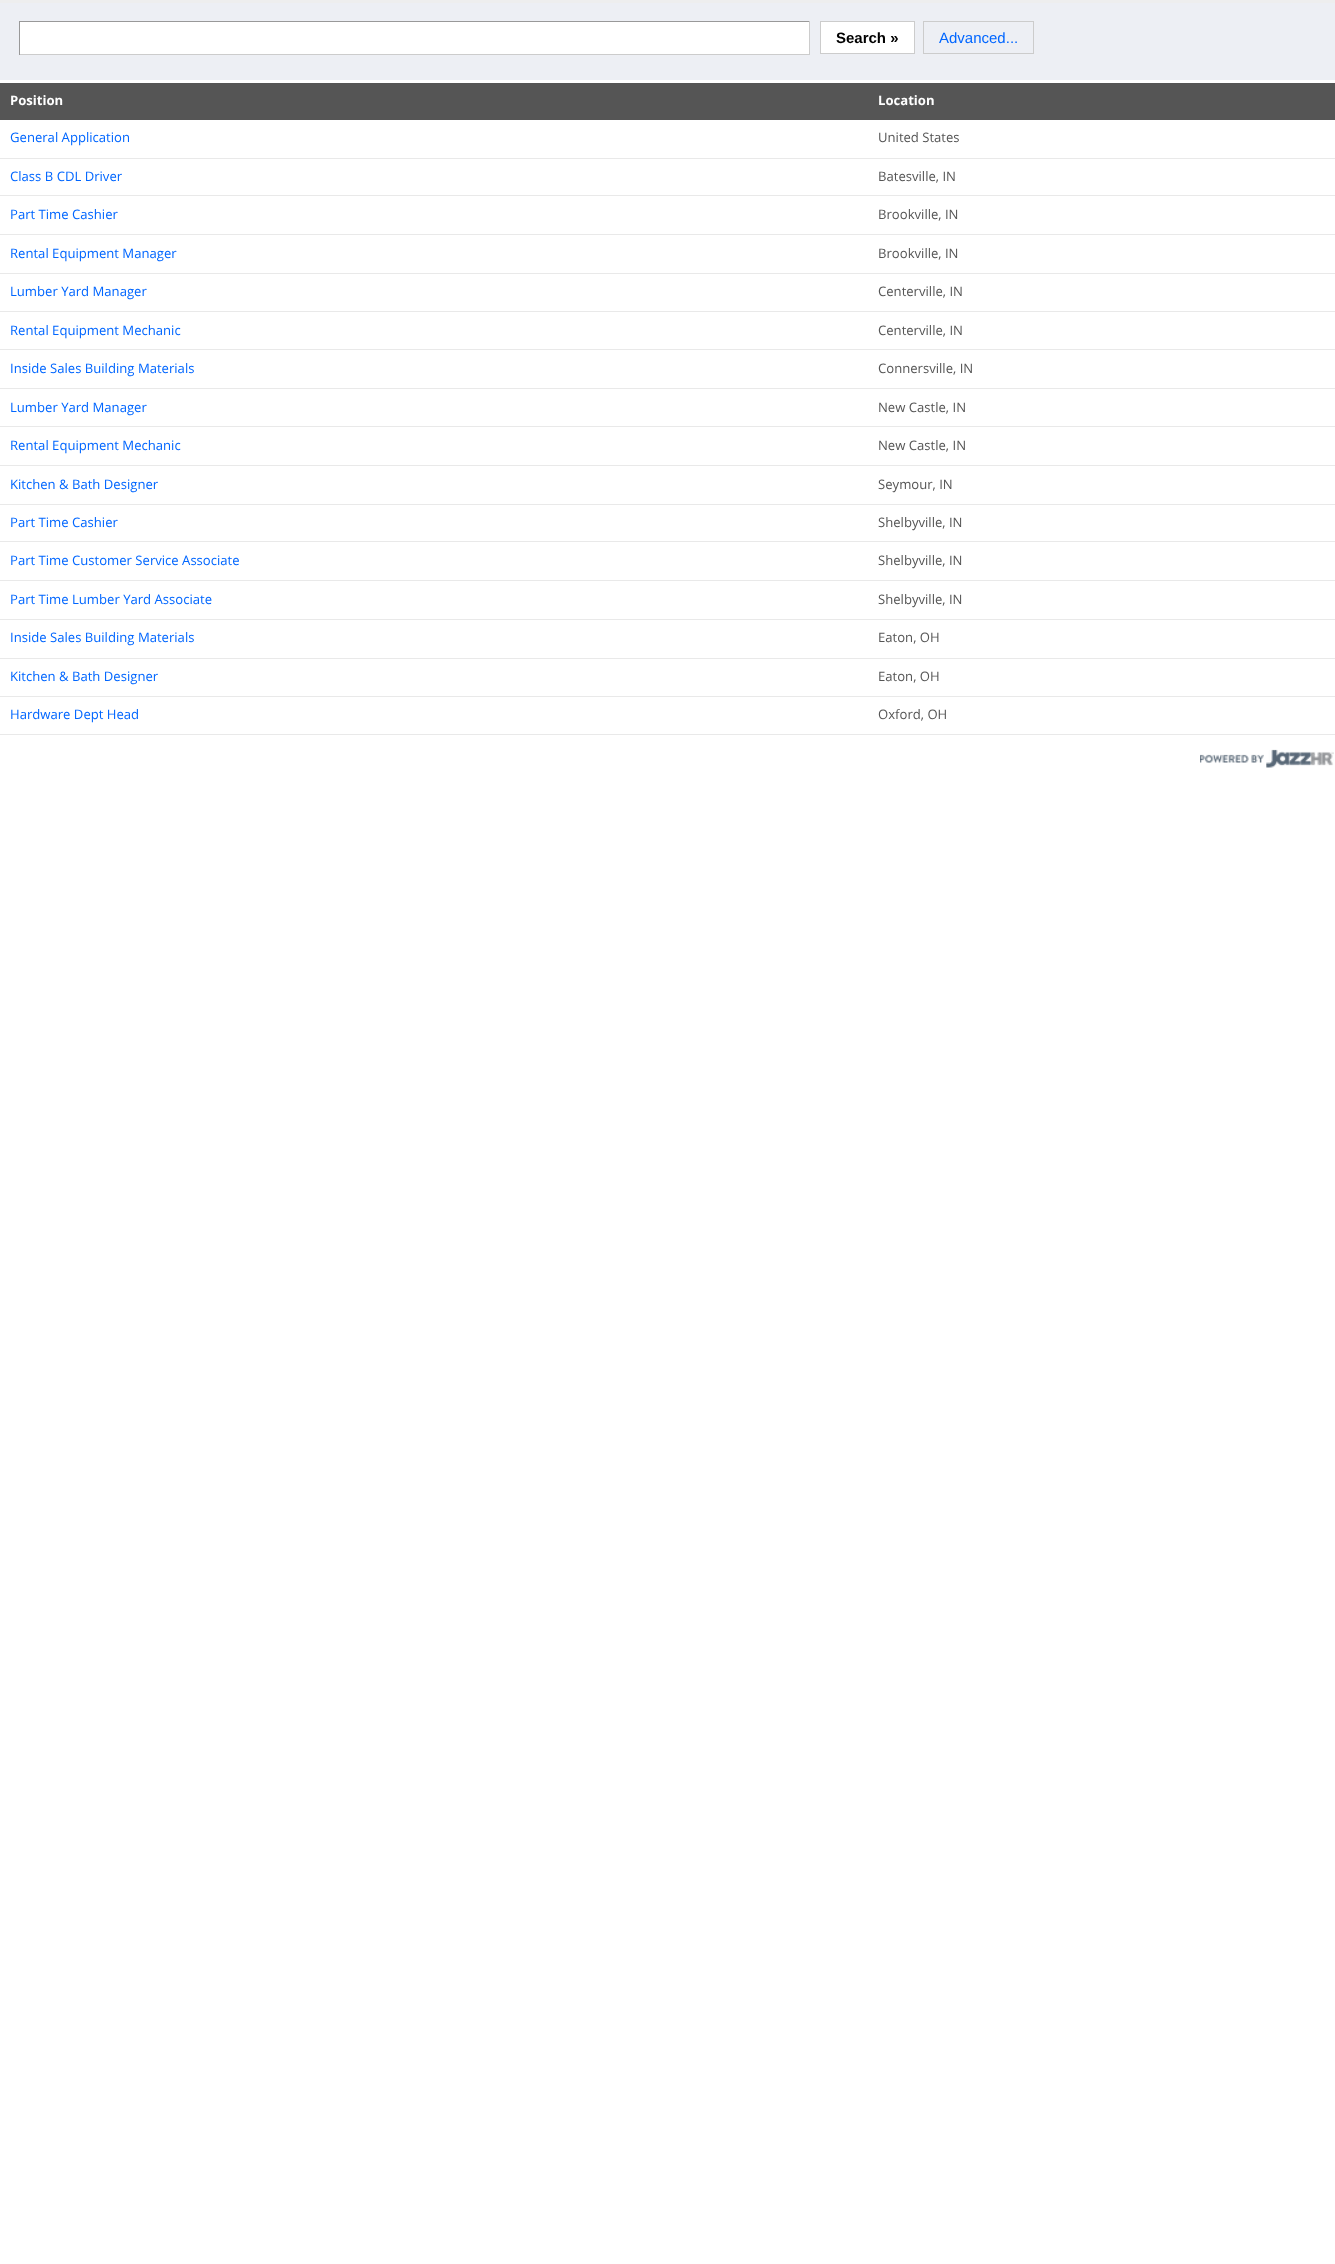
<svg xmlns="http://www.w3.org/2000/svg" width="1335" height="2264" viewBox="0 0 1335 2264">
  <style>
    .t1 { font: bold 15px Liberation Sans; fill: #000; }
    .t2 { font: 15px Liberation Sans; fill: #06f; }
    .t3 { font: bold 13.1px Open Sans; fill: #fff; }
    .t4 { font: 13.1px Open Sans; fill: #06f; }
    .t5 { font: 13.1px Open Sans; fill: #555; }
  </style>
  <rect width="100%" height="100%" fill="#fff"/>
  <rect x="0" y="3" width="1335" height="77" fill="#edeff4"/>
  <rect x="0" y="0" width="1335" height="3" fill="#eee"/>
  <rect x="20" y="22" width="789" height="32" fill="#fff"/>
  <rect x="19" y="21" width="791" height="1" fill="#999"/>
  <rect x="809" y="21" width="1" height="34" fill="#ccc"/>
  <rect x="19" y="54" width="791" height="1" fill="#ccc"/>
  <rect x="19" y="21" width="1" height="34" fill="#999"/>
  <rect x="820.5" y="21.5" width="94" height="32" fill="#fff" stroke="#ccc"/>
  <text x="836" y="43" class="t1">Search »</text>
  <rect x="923.5" y="21.5" width="110" height="32" fill="none" stroke="#ccc"/>
  <text x="939" y="43" class="t2">Advanced...</text>
  <rect x="0" y="83" width="1335" height="37" fill="#555"/>
  <text x="10" y="105" class="t3">Position</text>
  <text x="878" y="105" class="t3">Location</text>
  <text x="10" y="142" class="t4">General Application</text>
  <rect x="0" y="158" width="1335" height="1" fill="#e9e9e9"/>
  <text x="878" y="142" class="t5">United States</text>
  <text x="10" y="181" class="t4">Class B CDL Driver</text>
  <rect x="0" y="195" width="1335" height="1" fill="#e9e9e9"/>
  <text x="878" y="181" class="t5">Batesville, IN</text>
  <text x="10" y="219" class="t4">Part Time Cashier</text>
  <rect x="0" y="234" width="1335" height="1" fill="#e9e9e9"/>
  <text x="878" y="219" class="t5">Brookville, IN</text>
  <text x="10" y="258" class="t4">Rental Equipment Manager</text>
  <rect x="0" y="273" width="1335" height="1" fill="#e9e9e9"/>
  <text x="878" y="258" class="t5">Brookville, IN</text>
  <text x="10" y="296" class="t4">Lumber Yard Manager</text>
  <rect x="0" y="311" width="1335" height="1" fill="#e9e9e9"/>
  <text x="878" y="296" class="t5">Centerville, IN</text>
  <text x="10" y="335" class="t4">Rental Equipment Mechanic</text>
  <rect x="0" y="349" width="1335" height="1" fill="#e9e9e9"/>
  <text x="878" y="335" class="t5">Centerville, IN</text>
  <text x="10" y="373" class="t4">Inside Sales Building Materials</text>
  <rect x="0" y="388" width="1335" height="1" fill="#e9e9e9"/>
  <text x="878" y="373" class="t5">Connersville, IN</text>
  <text x="10" y="412" class="t4">Lumber Yard Manager</text>
  <rect x="0" y="426" width="1335" height="1" fill="#e9e9e9"/>
  <text x="878" y="412" class="t5">New Castle, IN</text>
  <text x="10" y="450" class="t4">Rental Equipment Mechanic</text>
  <rect x="0" y="465" width="1335" height="1" fill="#e9e9e9"/>
  <text x="878" y="450" class="t5">New Castle, IN</text>
  <text x="10" y="489" class="t4">Kitchen &amp; Bath Designer</text>
  <rect x="0" y="504" width="1335" height="1" fill="#e9e9e9"/>
  <text x="878" y="489" class="t5">Seymour, IN</text>
  <text x="10" y="527" class="t4">Part Time Cashier</text>
  <rect x="0" y="541" width="1335" height="1" fill="#e9e9e9"/>
  <text x="878" y="527" class="t5">Shelbyville, IN</text>
  <text x="10" y="565" class="t4">Part Time Customer Service Associate</text>
  <rect x="0" y="580" width="1335" height="1" fill="#e9e9e9"/>
  <text x="878" y="565" class="t5">Shelbyville, IN</text>
  <text x="10" y="604" class="t4">Part Time Lumber Yard Associate</text>
  <rect x="0" y="619" width="1335" height="1" fill="#e9e9e9"/>
  <text x="878" y="604" class="t5">Shelbyville, IN</text>
  <text x="10" y="642" class="t4">Inside Sales Building Materials</text>
  <rect x="0" y="658" width="1335" height="1" fill="#e9e9e9"/>
  <text x="878" y="642" class="t5">Eaton, OH</text>
  <text x="10" y="681" class="t4">Kitchen &amp; Bath Designer</text>
  <rect x="0" y="696" width="1335" height="1" fill="#e9e9e9"/>
  <text x="878" y="681" class="t5">Eaton, OH</text>
  <text x="10" y="719" class="t4">Hardware Dept Head</text>
  <rect x="0" y="734" width="1335" height="1" fill="#e9e9e9"/>
  <text x="878" y="719" class="t5">Oxford, OH</text>
  <image x="1200" y="749" width="134" height="19" href="images/1.png"/>
</svg>
